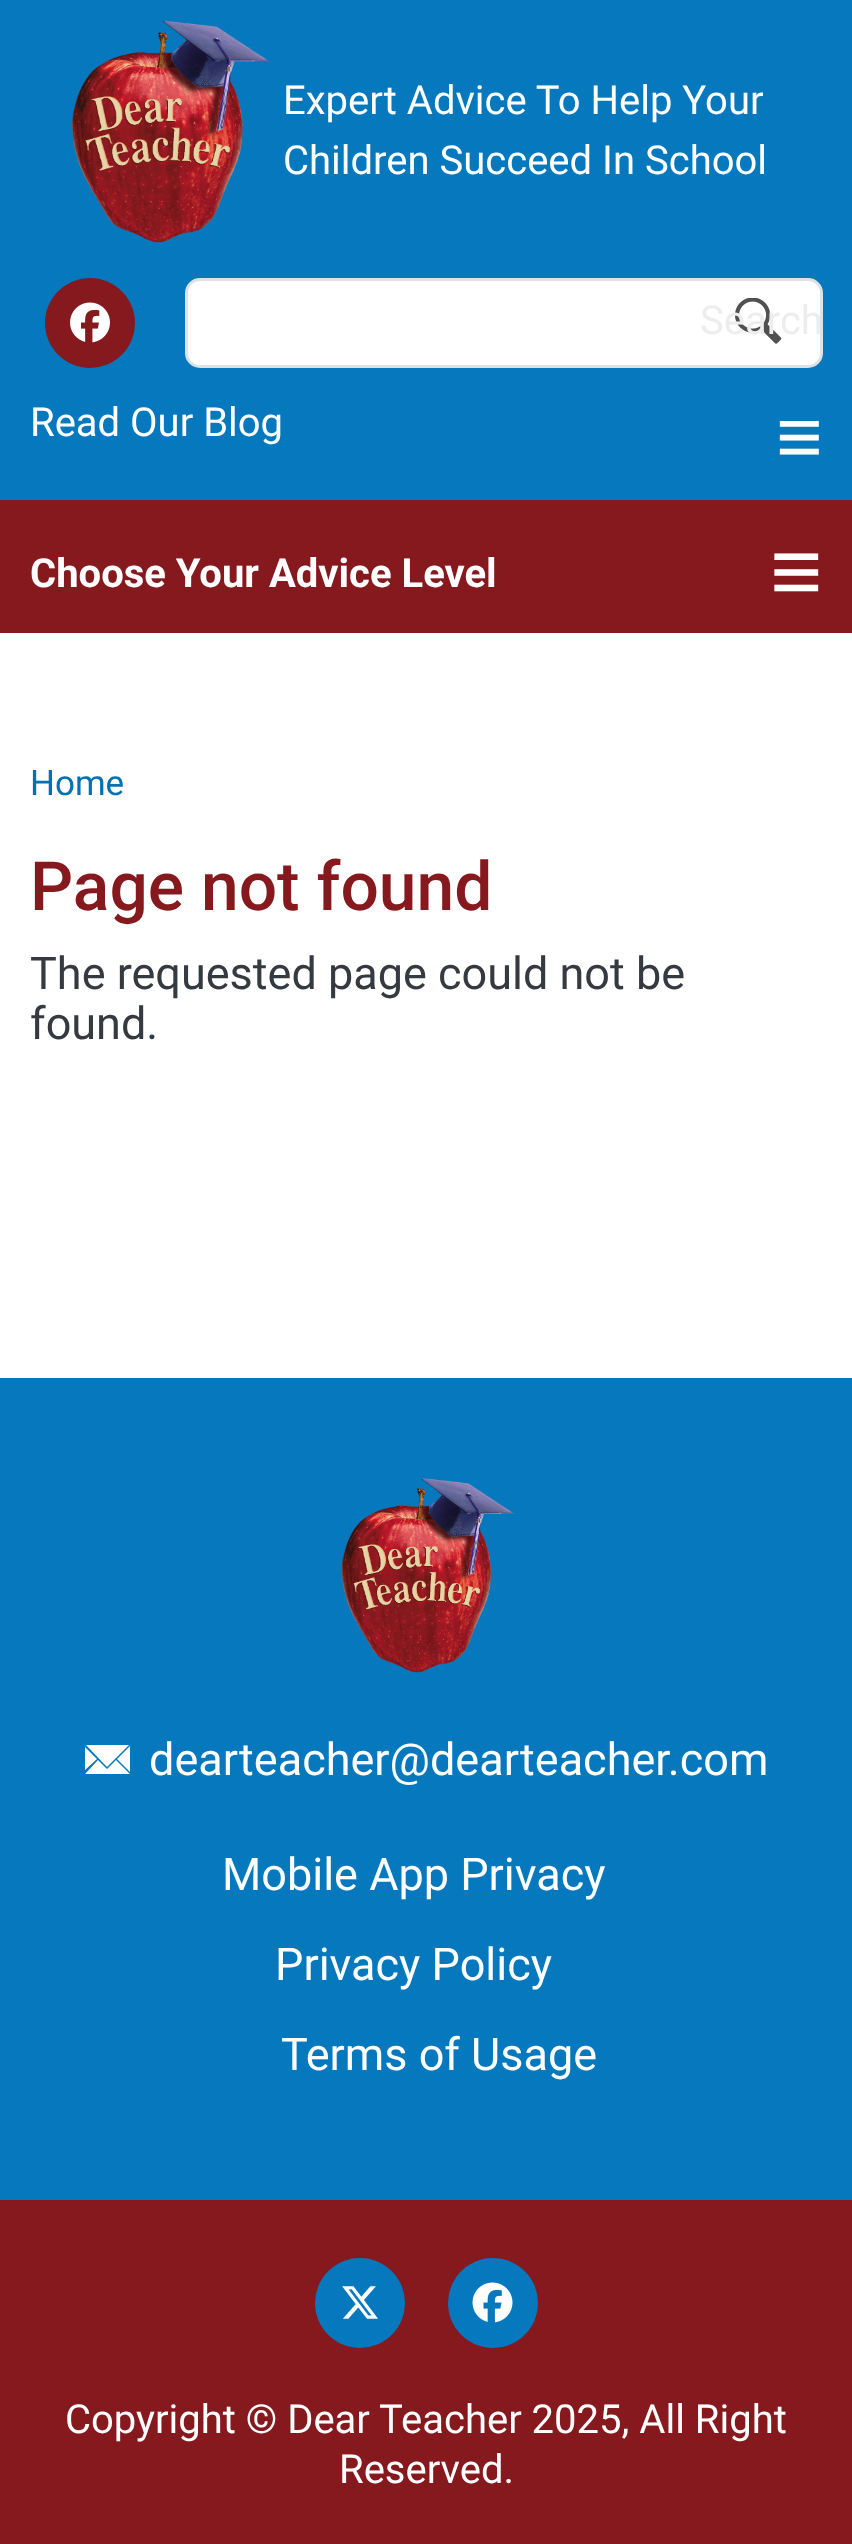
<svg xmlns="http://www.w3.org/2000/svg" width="852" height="2544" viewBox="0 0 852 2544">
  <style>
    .t1 { font: 40px Roboto; fill: #fff; }
    .t2 { font: 40px Roboto; fill: #ededed; }
    .t3 { font: bold 80px Liberation Sans; fill: #fff; }
    .t4 { font: bold 40px Roboto; fill: #fff; }
    .t5 { font: bold 90px Liberation Sans; fill: #fff; }
    .t6 { font: 35px Roboto; fill: #0071b3; }
    .t7 { font: 500 67.75px Roboto; fill: #85191e; }
    .t8 { font: 45px Roboto; fill: #343a40; }
    .t9 { font: 45px Roboto; fill: #fff; }
  </style>
  <rect width="100%" height="100%" fill="#fff"/>
  <rect x="0" y="0" width="852" height="500" fill="#0678be"/>
  <image x="72" y="20" width="197" height="223" href="images/1.png"/>
  <text x="283" y="114" class="t1">Expert Advice To Help Your</text>
  <text x="283" y="174" class="t1">Children Succeed In School</text>
  <circle cx="90" cy="323" r="45" fill="#85191e"/>
  <image x="70" y="302" width="40" height="41" href="images/2.png"/>
  <rect x="186.5" y="279.5" width="635" height="87" rx="13.5" fill="#fff" stroke="#dee2e6" stroke-width="3"/>
  <image x="735" y="298" width="47" height="46" href="images/3.png"/>
  <text x="700" y="334" class="t2">Search</text>
  <text x="30" y="436" class="t1">Read Our Blog</text>
  <text x="776" y="464" class="t3">≡</text>
  <rect x="0" y="500" width="852" height="133" fill="#85191e"/>
  <text x="30" y="587" class="t4">Choose Your Advice Level</text>
  <text x="770" y="602" class="t5">≡</text>
  <text x="30" y="795" class="t6">Home</text>
  <text x="30" y="910" class="t7">Page not found</text>
  <text x="30" y="989" class="t8">The requested page could not be</text>
  <text x="30" y="1039" class="t8">found.</text>
  <rect x="0" y="1378" width="852" height="822" fill="#0678be"/>
  <image x="342" y="1478" width="172" height="195" href="images/4.png"/>
  <path d="M107 1769L116 1760L130 1774H85L98 1760ZM86 1745L107 1767L129 1745ZM85 1770L97 1759L85 1747ZM130 1772L117 1759L130 1746Z" fill="#fff" fill-rule="evenodd"/>
  <text x="149" y="1775" class="t9">dearteacher@dearteacher.com</text>
  <text x="222" y="1890" class="t9">Mobile App Privacy</text>
  <text x="275" y="1980" class="t9">Privacy Policy</text>
  <text x="281" y="2070" class="t9">Terms of Usage</text>
  <rect x="0" y="2200" width="852" height="344" fill="#85191e"/>
  <circle cx="360" cy="2303" r="45" fill="#0678be"/>
  <image x="342" y="2286" width="36" height="33" href="images/5.png"/>
  <circle cx="493" cy="2303" r="45" fill="#0678be"/>
  <image x="472" y="2282" width="41" height="41" href="images/6.png"/>
  <text x="65" y="2433" class="t1">Copyright © Dear Teacher 2025, All Right</text>
  <text x="339" y="2483" class="t1">Reserved.</text>
</svg>
